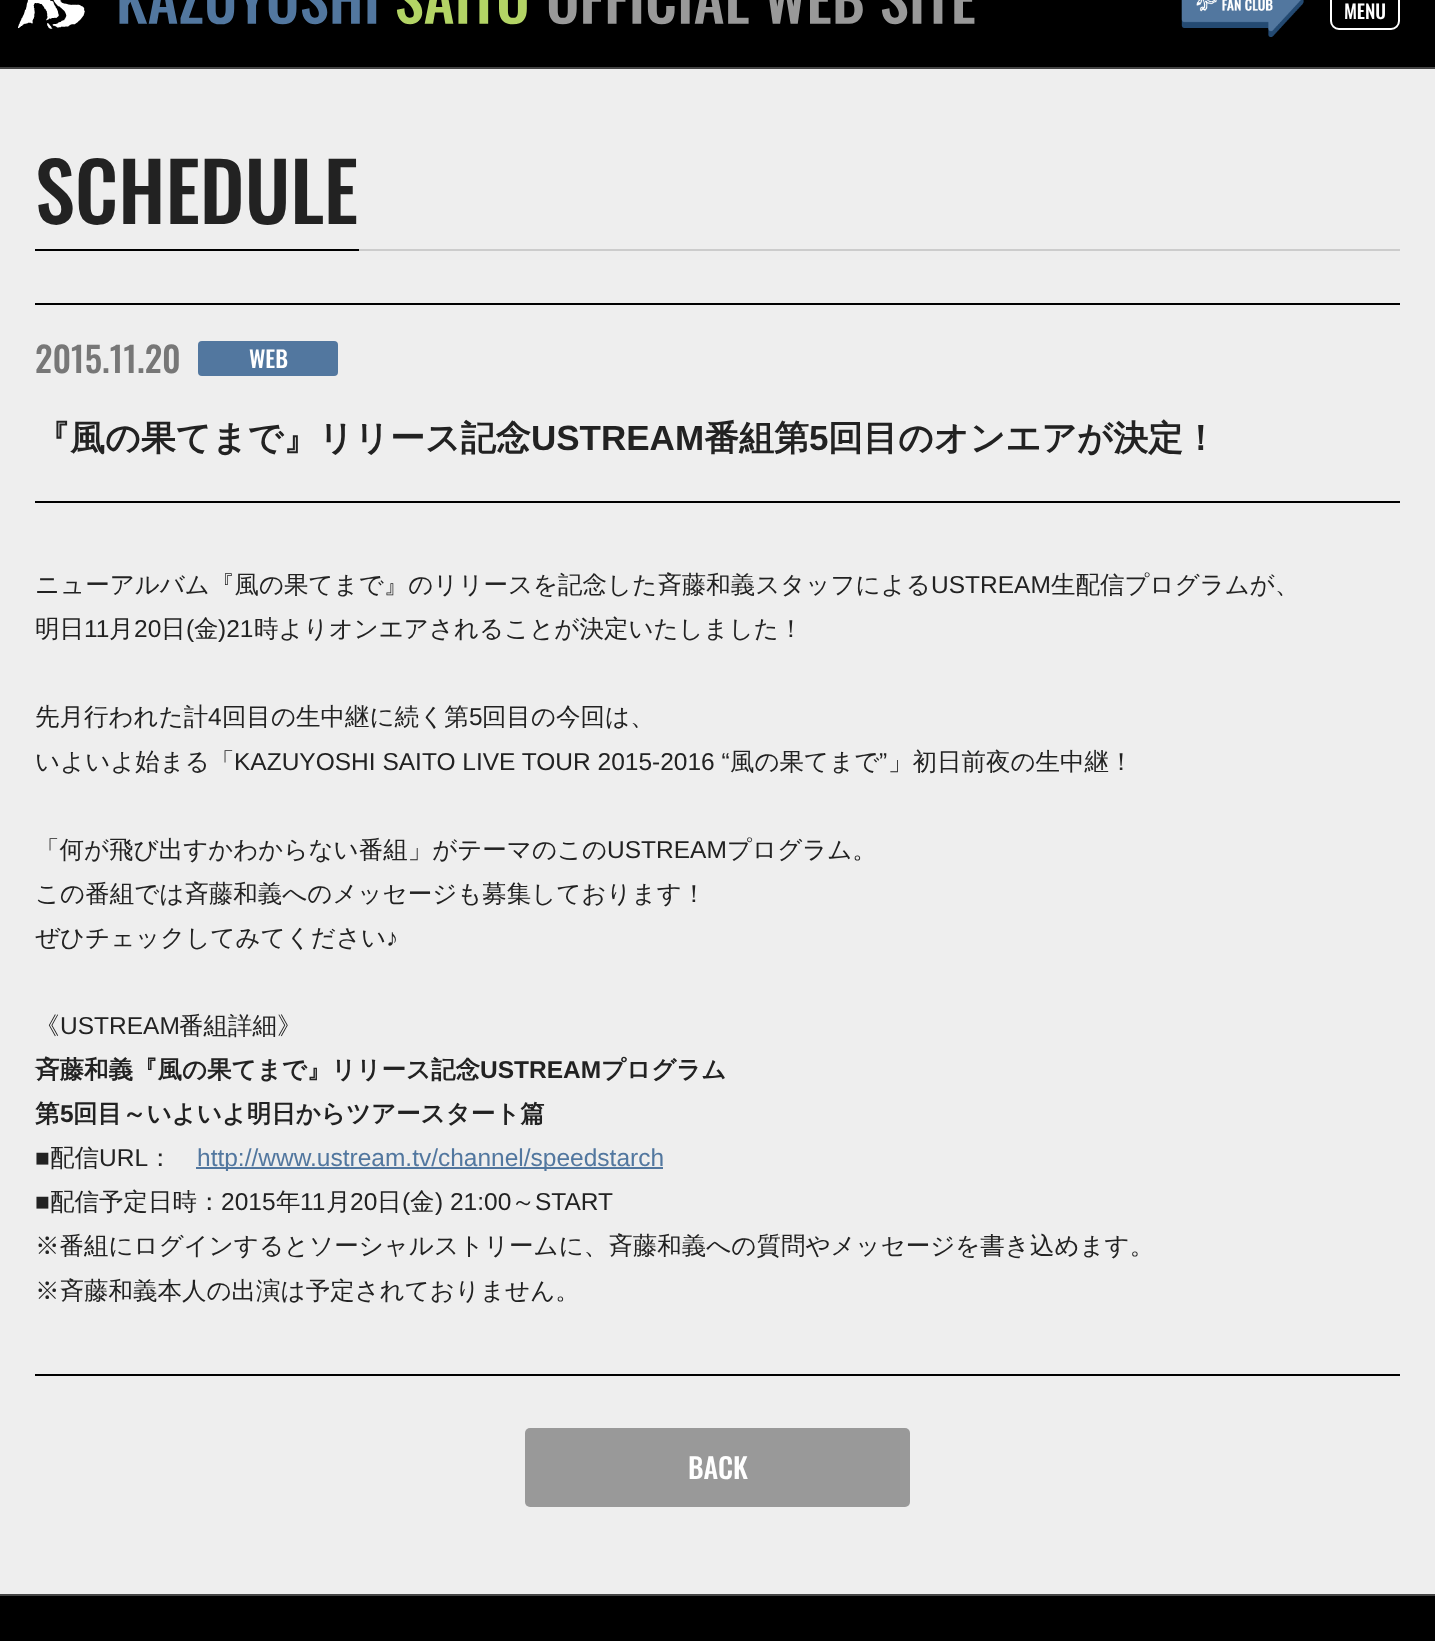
<svg xmlns="http://www.w3.org/2000/svg" width="1435" height="1641" viewBox="0 0 1435 1641">
  <style>
    .t1 { font: 500 19px Oswald; fill: #fff; }
    .t2 { font: 500 80.5px Oswald; fill: #222; }
    .t3 { font: 500 35px Oswald; fill: #777; }
    .t4 { font: 500 23px Oswald; fill: #fff; }
    .t5 { font: bold 35px WenQuanYi Zen Hei; fill: #222; }
    .t6 { font: bold 35px Liberation Sans; fill: #222; }
    .t7 { font: 500 24.5px WenQuanYi Zen Hei; fill: #222; }
    .t8 { font: 24.5px Liberation Sans; fill: #222; }
    .t9 { font: bold 24.5px WenQuanYi Zen Hei; fill: #222; }
    .t10 { font: bold 24.5px Liberation Sans; fill: #222; }
    .t11 { font: 24.5px Liberation Sans; fill: #52779f; }
    .t12 { font: 500 28px Oswald; fill: #fff; }
  </style>
  <rect width="100%" height="100%" fill="#000"/>
  <rect x="0" y="67" width="1435" height="2" fill="#444"/>
  <image x="18" y="0" width="957" height="29" href="images/1.png"/>
  <image x="1181" y="0" width="123" height="37" href="images/2.png"/>
  <rect x="1331" y="-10" width="68" height="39" rx="8" fill="none" stroke="#fff" stroke-width="2"/>
  <text x="1344" y="19" class="t1">MENU</text>
  <rect x="0" y="69" width="1435" height="1525" fill="#eee"/>
  <rect x="35" y="249" width="324" height="2" fill="#000"/>
  <text x="35" y="224" class="t2">SCHEDULE</text>
  <rect x="359" y="249" width="1041" height="2" fill="#ccc"/>
  <rect x="35" y="303" width="1365" height="2" fill="#000"/>
  <rect x="35" y="501" width="1365" height="2" fill="#000"/>
  <text x="35" y="373" class="t3">2015.11.20</text>
  <rect x="198" y="341" width="140" height="35" rx="4" fill="#52779f"/>
  <text x="249" y="368" class="t4">WEB</text>
  <text x="35" y="450" class="t5">『風の果てまで』リリース記念</text>
  <text x="531" y="450" class="t6">USTREAM</text>
  <text x="704" y="450" class="t5">番組第</text>
  <text x="809" y="450" class="t6">5</text>
  <text x="828" y="450" class="t5">回目のオンエアが決定！</text>
  <rect x="35" y="1374" width="1365" height="2" fill="#000"/>
  <text x="35" y="593" class="t7">ニューアルバム『風の果てまで』のリリースを記念した斉藤和義スタッフによる</text>
  <text x="931" y="593" class="t8">USTREAM</text>
  <text x="1051" y="593" class="t7">生配信プログラムが、</text>
  <text x="35" y="637" class="t7">明日</text>
  <text x="84" y="637" class="t8">11</text>
  <text x="109" y="637" class="t7">月</text>
  <text x="134" y="637" class="t8">20</text>
  <text x="161" y="637" class="t7">日</text>
  <text x="186" y="637" class="t8">(</text>
  <text x="194" y="637" class="t7">金</text>
  <text x="218" y="637" class="t8">)21</text>
  <text x="254" y="637" class="t7">時よりオンエアされることが決定いたしました！</text>
  <text x="35" y="725" class="t7">先月行われた計</text>
  <text x="208" y="725" class="t8">4</text>
  <text x="222" y="725" class="t7">回目の生中継に続く第</text>
  <text x="469" y="725" class="t8">5</text>
  <text x="482" y="725" class="t7">回目の今回は、</text>
  <text x="35" y="770" class="t7">いよいよ始まる「</text>
  <text x="234" y="770" class="t8">KAZUYOSHI SAITO LIVE TOUR 2015-2016 “</text>
  <text x="730" y="770" class="t7">風の果てまで</text>
  <text x="879" y="770" class="t8">”</text>
  <text x="888" y="770" class="t7">」初日前夜の生中継！</text>
  <text x="35" y="858" class="t7">「何が飛び出すかわからない番組」がテーマのこの</text>
  <text x="607" y="858" class="t8">USTREAM</text>
  <text x="727" y="858" class="t7">プログラム。</text>
  <text x="35" y="902" class="t7">この番組では斉藤和義へのメッセージも募集しております！</text>
  <text x="35" y="946" class="t7">ぜひチェックしてみてください</text>
  <text x="386" y="946" class="t8">♪</text>
  <text x="35" y="1034" class="t7">《</text>
  <text x="60" y="1034" class="t8">USTREAM</text>
  <text x="179" y="1034" class="t7">番組詳細》</text>
  <text x="35" y="1078" class="t9">斉藤和義『風の果てまで』リリース記念</text>
  <text x="480" y="1078" class="t10">USTREAM</text>
  <text x="601" y="1078" class="t9">プログラム</text>
  <text x="35" y="1122" class="t9">第</text>
  <text x="60" y="1122" class="t10">5</text>
  <text x="73" y="1122" class="t9">回目～いよいよ明日からツアースタート篇</text>
  <text x="35" y="1166" class="t8">■</text>
  <text x="50" y="1166" class="t7">配信</text>
  <text x="99" y="1166" class="t8">URL</text>
  <text x="148" y="1166" class="t7">：</text>
  <rect x="196" y="1167" width="467" height="2" fill="#52779f"/>
  <text x="197" y="1166" class="t11">http://www.ustream.tv/channel/speedstarch</text>
  <text x="35" y="1210" class="t8">■</text>
  <text x="50" y="1210" class="t7">配信予定日時：</text>
  <text x="221" y="1210" class="t8">2015</text>
  <text x="276" y="1210" class="t7">年</text>
  <text x="300" y="1210" class="t8">11</text>
  <text x="326" y="1210" class="t7">月</text>
  <text x="350" y="1210" class="t8">20</text>
  <text x="377" y="1210" class="t7">日</text>
  <text x="402" y="1210" class="t8">(</text>
  <text x="410" y="1210" class="t7">金</text>
  <text x="435" y="1210" class="t8">) 21:00</text>
  <text x="511" y="1210" class="t7">～</text>
  <text x="535" y="1210" class="t8">START</text>
  <text x="35" y="1254" class="t7">※番組にログインするとソーシャルストリームに、斉藤和義への質問やメッセージを書き込めます。</text>
  <text x="35" y="1299" class="t7">※斉藤和義本人の出演は予定されておりません。</text>
  <rect x="525" y="1428" width="385" height="79" rx="5" fill="#999"/>
  <text x="688" y="1479" class="t12">BACK</text>
  <rect x="0" y="1594" width="1435" height="2" fill="#444"/>
</svg>
